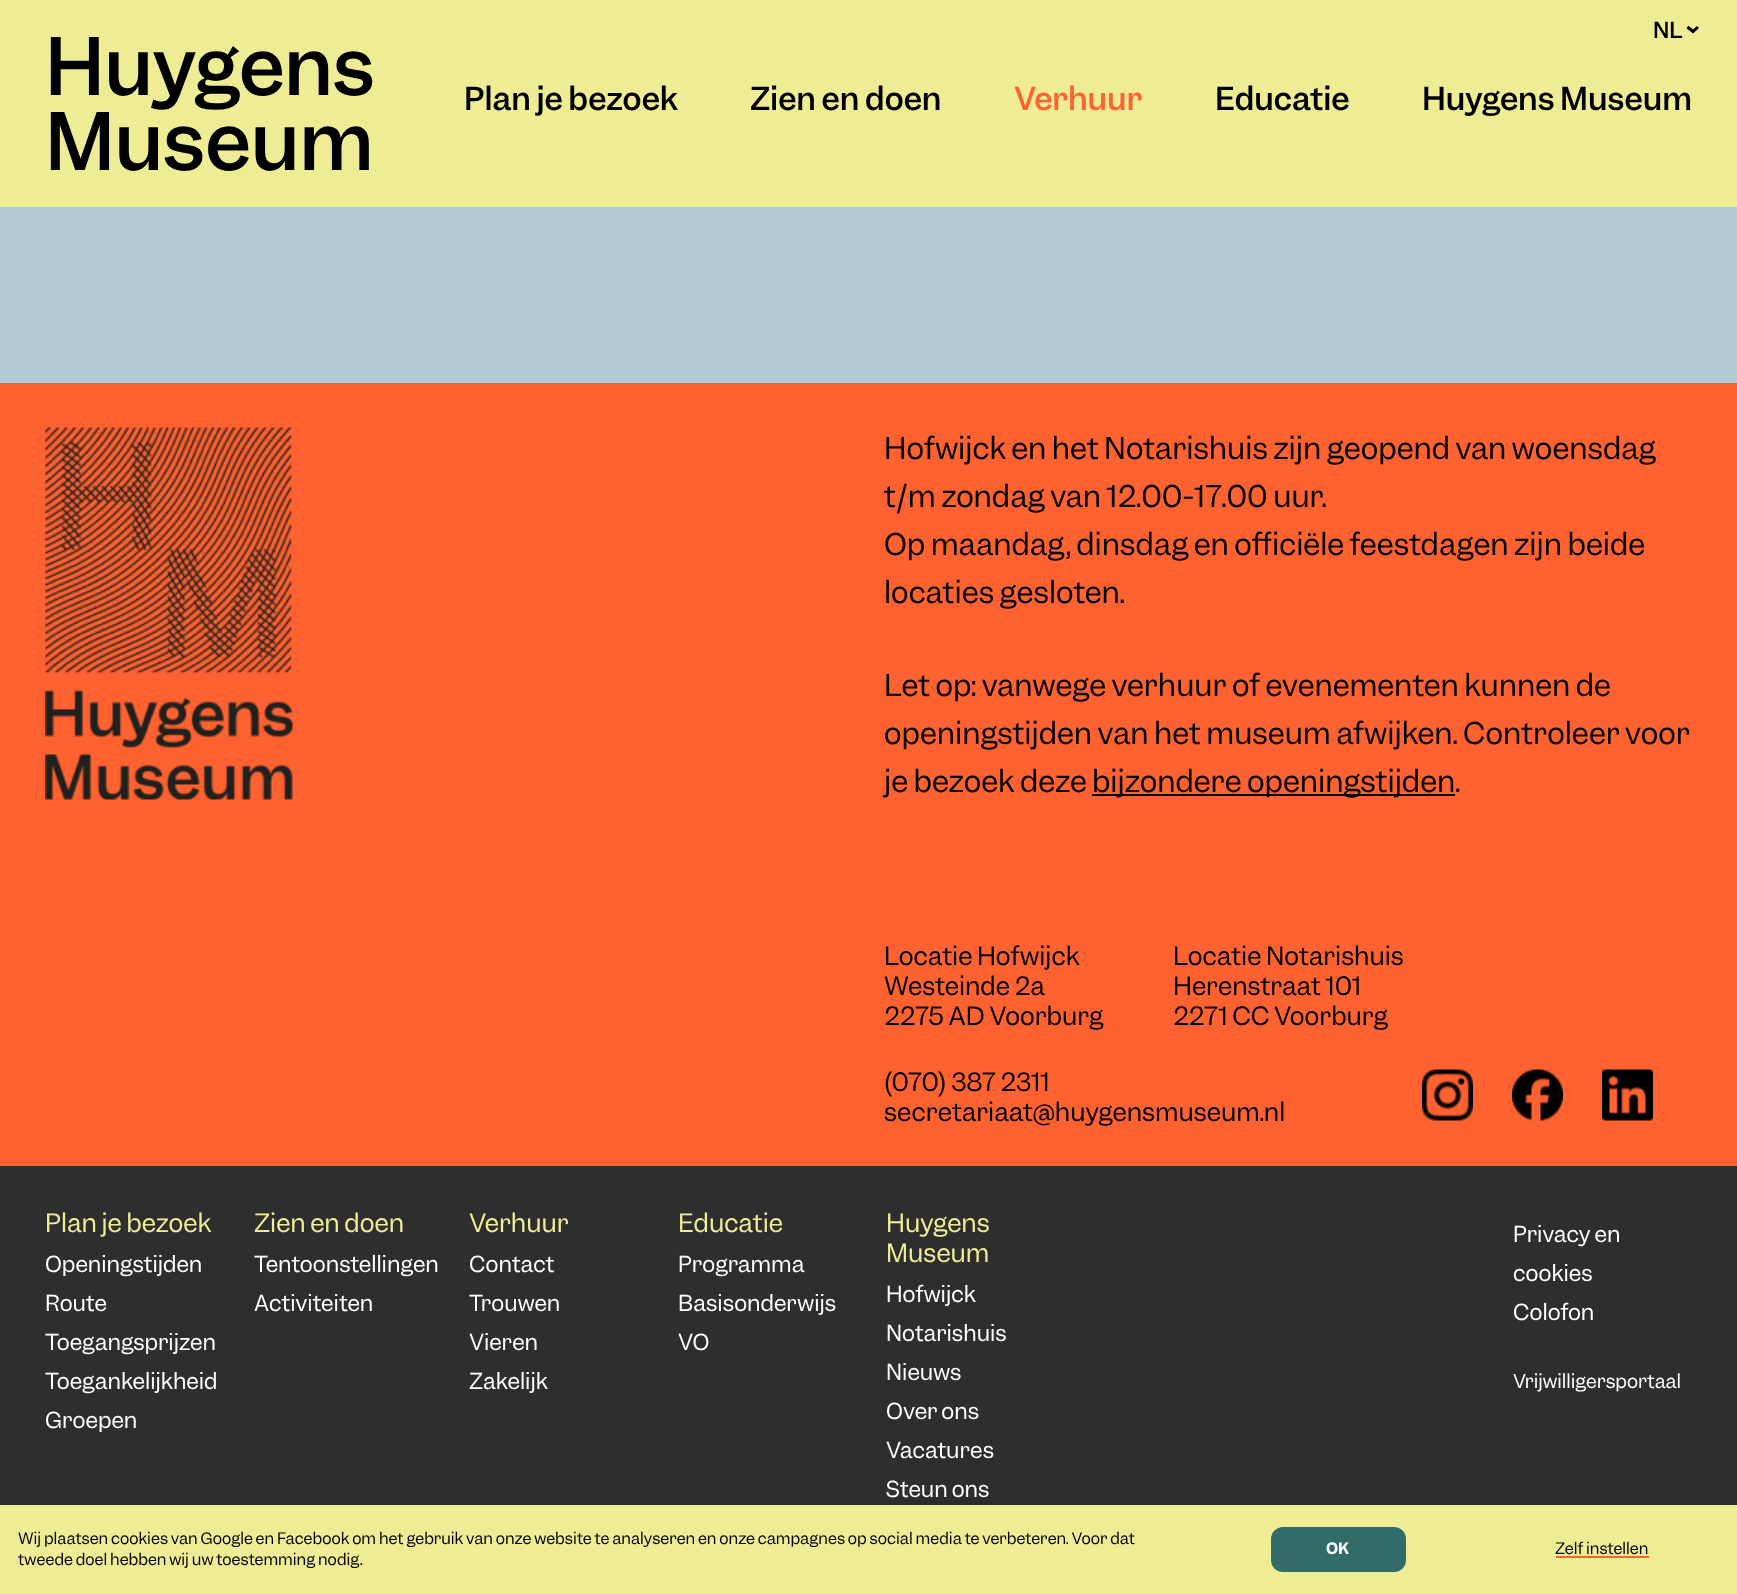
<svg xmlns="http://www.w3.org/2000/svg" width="1737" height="1594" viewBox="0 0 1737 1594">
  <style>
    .t1 { font: 500 21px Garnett; fill: #000; }
    .t2 { font: 500 75px Garnett; letter-spacing: -0.25px; fill: #000; }
    .t3 { font: 500 30px Garnett; fill: #000; }
    .t4 { font: 500 30px Garnett; fill: #ff6231; }
    .t5 { font: 28.5px Garnett; fill: #000; }
    .t6 { font: 24px Garnett; fill: #000; }
    .t7 { font: 24px Garnett; fill: #eeed95; }
    .t8 { font: 21px Garnett; fill: #fff; }
    .t9 { font: 18px Garnett; fill: #fff; }
    .t10 { font: 15px Garnett; fill: #000; }
    .t11 { font: 600 15px Garnett; fill: #fff; }
  </style>
  <rect width="100%" height="100%" fill="#2e2e2e"/>
  <rect x="0" y="0" width="1737" height="207" fill="#eeed95"/>
  <text x="1653" y="38" class="t1">NL</text>
  <path d="M1687.5 27L1693 31.5L1698 27" fill="none" stroke="#000" stroke-width="3"/>
  <text x="45" y="95" class="t2">Huygens</text>
  <text x="45" y="170" class="t2">Museum</text>
  <text x="464" y="110" class="t3">Plan je bezoek</text>
  <text x="750" y="110" class="t3">Zien en doen</text>
  <text x="1014" y="110" class="t4">Verhuur</text>
  <text x="1215" y="110" class="t3">Educatie</text>
  <text x="1422" y="110" class="t3">Huygens Museum</text>
  <rect x="0" y="207" width="1737" height="176" fill="#b3cbd6"/>
  <rect x="0" y="383" width="1737" height="783" fill="#ff6231"/>
  <image x="45" y="427" width="248" height="373" href="images/1.png"/>
  <text x="884" y="459" class="t5">Hofwijck en het Notarishuis zijn geopend van woensdag</text>
  <text x="884" y="507" class="t5">t/m zondag van 12.00-17.00 uur.</text>
  <text x="884" y="555" class="t5">Op maandag, dinsdag en officiële feestdagen zijn beide</text>
  <text x="884" y="603" class="t5">locaties gesloten.</text>
  <text x="884" y="696" class="t5">Let op: vanwege verhuur of evenementen kunnen de</text>
  <text x="884" y="744" class="t5">openingstijden van het museum afwijken. Controleer voor</text>
  <text x="884" y="792" class="t5">je bezoek deze</text>
  <rect x="1092" y="794" width="363" height="2" fill="#000"/>
  <text x="1092" y="792" class="t5">bijzondere openingstijden.</text>
  <text x="884" y="965" class="t6">Locatie Hofwijck</text>
  <text x="884" y="995" class="t6">Westeinde 2a</text>
  <text x="884" y="1025" class="t6">2275 AD Voorburg</text>
  <text x="1173" y="965" class="t6">Locatie Notarishuis</text>
  <text x="1173" y="995" class="t6">Herenstraat 101</text>
  <text x="1173" y="1025" class="t6">2271 CC Voorburg</text>
  <text x="884" y="1091" class="t6">(070) 387 2311</text>
  <text x="884" y="1121" class="t6">secretariaat@huygensmuseum.nl</text>
  <image x="1422" y="1069" width="51" height="52" href="images/2.png"/>
  <image x="1512" y="1069" width="51" height="52" href="images/3.png"/>
  <image x="1602" y="1069" width="51" height="52" href="images/4.png"/>
  <text x="45" y="1232" class="t7">Plan je bezoek</text>
  <text x="45" y="1272" class="t8">Openingstijden</text>
  <text x="45" y="1311" class="t8">Route</text>
  <text x="45" y="1350" class="t8">Toegangsprijzen</text>
  <text x="45" y="1389" class="t8">Toegankelijkheid</text>
  <text x="45" y="1428" class="t8">Groepen</text>
  <text x="254" y="1232" class="t7">Zien en doen</text>
  <text x="254" y="1272" class="t8">Tentoonstellingen</text>
  <text x="254" y="1311" class="t8">Activiteiten</text>
  <text x="469" y="1232" class="t7">Verhuur</text>
  <text x="469" y="1272" class="t8">Contact</text>
  <text x="469" y="1311" class="t8">Trouwen</text>
  <text x="469" y="1350" class="t8">Vieren</text>
  <text x="469" y="1389" class="t8">Zakelijk</text>
  <text x="678" y="1232" class="t7">Educatie</text>
  <text x="678" y="1272" class="t8">Programma</text>
  <text x="678" y="1311" class="t8">Basisonderwijs</text>
  <text x="678" y="1350" class="t8">VO</text>
  <text x="886" y="1232" class="t7">Huygens</text>
  <text x="886" y="1262" class="t7">Museum</text>
  <text x="886" y="1302" class="t8">Hofwijck</text>
  <text x="886" y="1341" class="t8">Notarishuis</text>
  <text x="886" y="1380" class="t8">Nieuws</text>
  <text x="886" y="1419" class="t8">Over ons</text>
  <text x="886" y="1458" class="t8">Vacatures</text>
  <text x="886" y="1497" class="t8">Steun ons</text>
  <text x="1513" y="1242" class="t8">Privacy en</text>
  <text x="1513" y="1281" class="t8">cookies</text>
  <text x="1513" y="1320" class="t8">Colofon</text>
  <text x="1513" y="1388" class="t9">Vrijwilligersportaal</text>
  <rect x="0" y="1511" width="1737" height="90" fill="#00000066" filter="blur(6px)"/>
  <rect x="0" y="1505" width="1737" height="89" fill="#eeed95"/>
  <text x="18" y="1544" class="t10">Wij plaatsen cookies van Google en Facebook om het gebruik van onze website te analyseren en onze campagnes op social media te verbeteren. Voor dat</text>
  <text x="18" y="1565" class="t10">tweede doel hebben wij uw toestemming nodig.</text>
  <rect x="1271" y="1527" width="135" height="45" rx="12" fill="#326c69"/>
  <text x="1326" y="1554" class="t11">OK</text>
  <text x="1555" y="1554" class="t10">Zelf instellen</text>
  <rect x="1556" y="1556" width="93" height="2" fill="#ff6231"/>
</svg>
